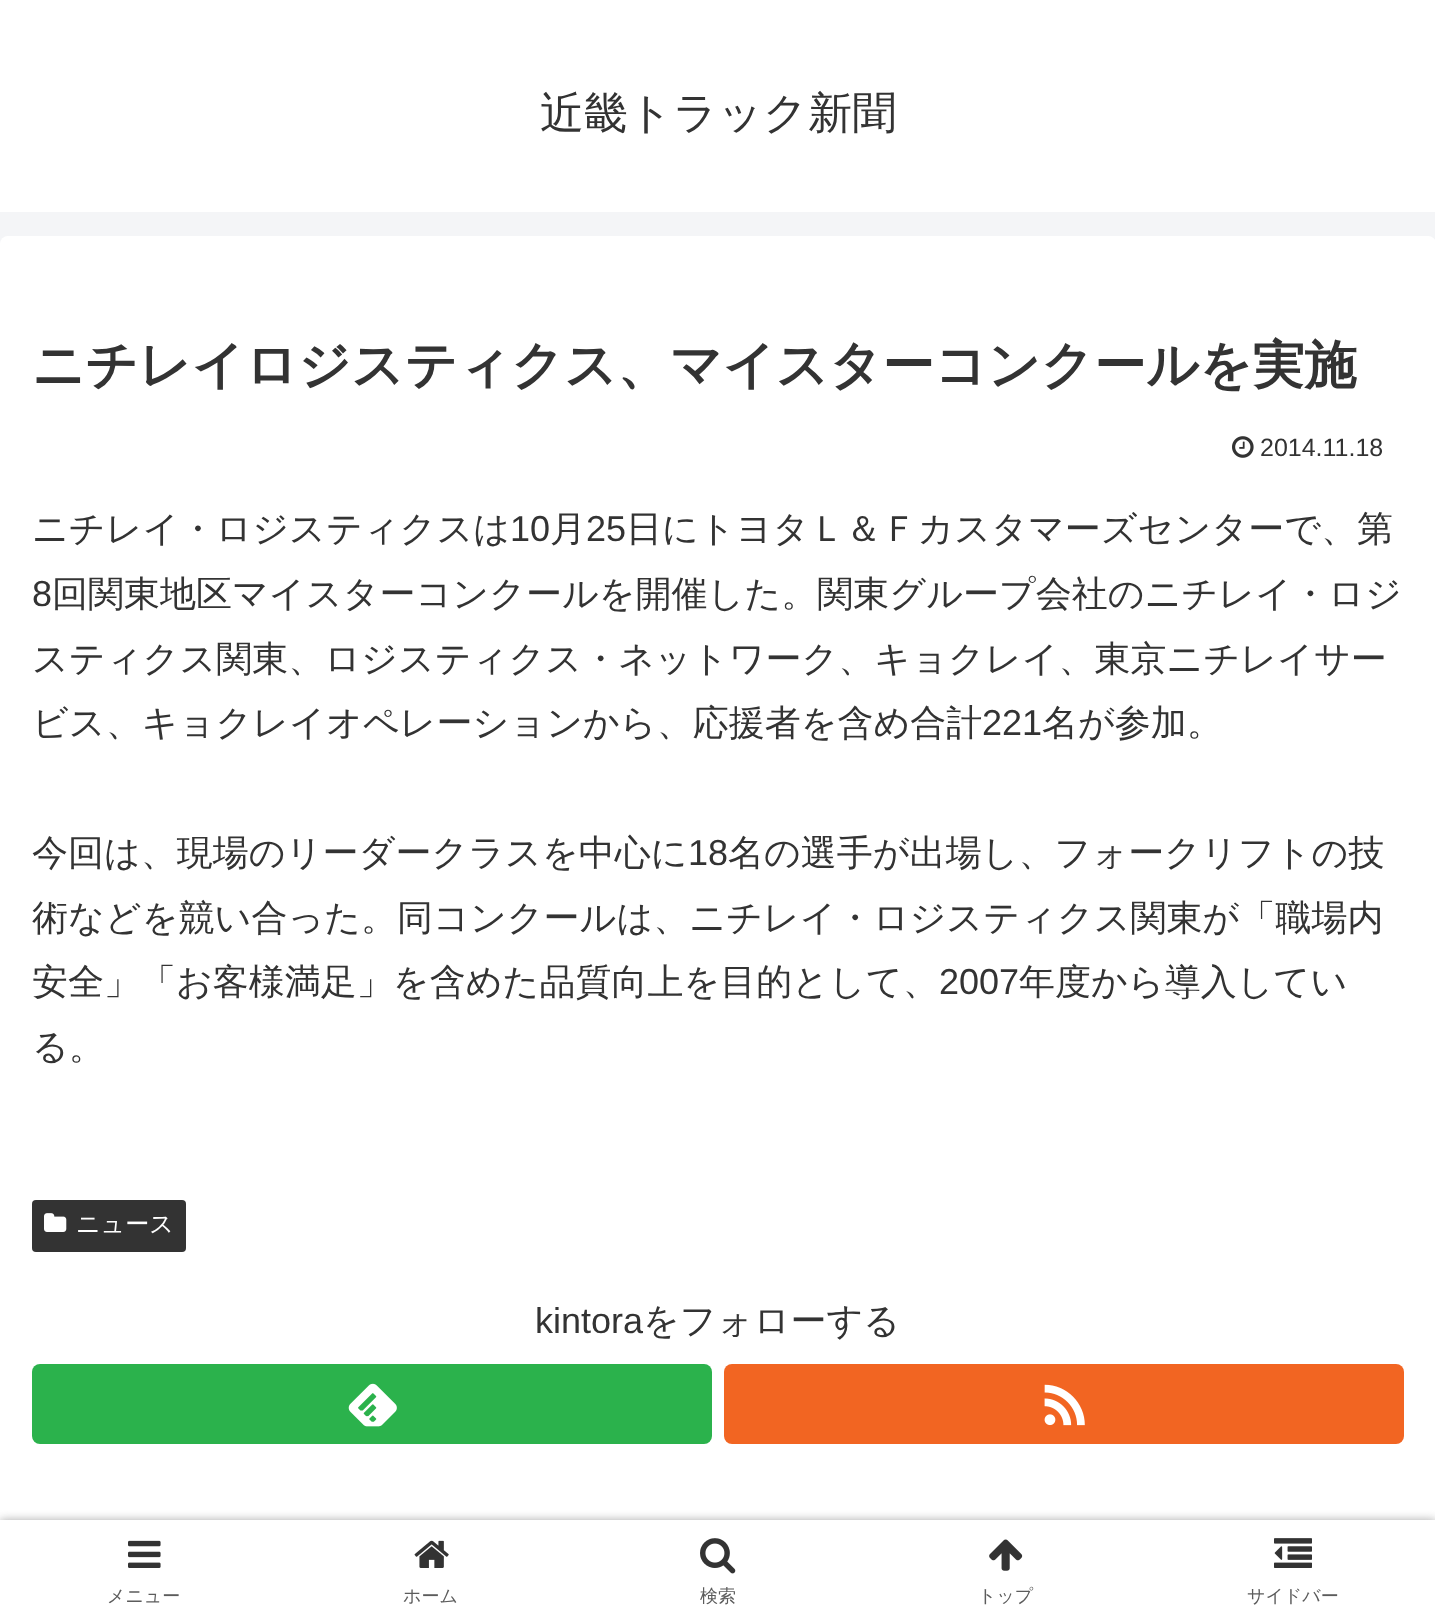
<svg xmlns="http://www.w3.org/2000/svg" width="1435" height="1620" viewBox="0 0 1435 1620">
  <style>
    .t1 { font: 500 44px WenQuanYi Zen Hei; fill: #333; }
    .t2 { font: bold 52px WenQuanYi Zen Hei; fill: #333; }
    .t3 { font: 25px Liberation Sans; fill: #333; }
    .t4 { font: 500 36px WenQuanYi Zen Hei; fill: #333; }
    .t5 { font: 36px Liberation Sans; fill: #333; }
    .t6 { font: 500 24px WenQuanYi Zen Hei; fill: #fff; }
    .t7 { font: 500 18px WenQuanYi Zen Hei; fill: #5c5c5c; }
  </style>
  <rect width="100%" height="100%" fill="#f4f5f7"/>
  <rect x="0" y="0" width="1435" height="212" fill="#fff"/>
  <text x="540" y="128" class="t1">近畿トラック新聞</text>
  <rect x="0" y="236" width="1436" height="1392" rx="8" fill="#fff"/>
  <text x="32" y="383" class="t2">ニチレイロジスティクス、マイスターコンクールを実施</text>
  <image x="1232" y="436" width="22" height="22" href="images/1.png"/>
  <text x="1260" y="456" class="t3">2014.11.18</text>
  <text x="32" y="541" class="t4">ニチレイ・ロジスティクスは</text>
  <text x="510" y="541" class="t5">10</text>
  <text x="550" y="541" class="t4">月</text>
  <text x="586" y="541" class="t5">25</text>
  <text x="626" y="541" class="t4">日にトヨタＬ＆Ｆカスタマーズセンターで、第</text>
  <text x="32" y="606" class="t5">8</text>
  <text x="52" y="606" class="t4">回関東地区マイスターコンクールを開催した。関東グループ会社のニチレイ・ロジ</text>
  <text x="32" y="671" class="t4">スティクス関東、ロジスティクス・ネットワーク、キョクレイ、東京ニチレイサー</text>
  <text x="32" y="735" class="t4">ビス、キョクレイオペレーションから、応援者を含め合計</text>
  <text x="982" y="735" class="t5">221</text>
  <text x="1042" y="735" class="t4">名が参加。</text>
  <text x="32" y="865" class="t4">今回は、現場のリーダークラスを中心に</text>
  <text x="688" y="865" class="t5">18</text>
  <text x="728" y="865" class="t4">名の選手が出場し、フォークリフトの技</text>
  <text x="32" y="930" class="t4">術などを競い合った。同コンクールは、ニチレイ・ロジスティクス関東が「職場内</text>
  <text x="32" y="994" class="t4">安全」「お客様満足」を含めた品質向上を目的として、</text>
  <text x="939" y="994" class="t5">2007</text>
  <text x="1019" y="994" class="t4">年度から導入してい</text>
  <text x="32" y="1059" class="t4">る。</text>
  <rect x="32" y="1200" width="154" height="52" rx="4" fill="#333"/>
  <image x="44" y="1213" width="23" height="19" href="images/2.png"/>
  <text x="76" y="1232" class="t6">ニュース</text>
  <text x="535" y="1333" class="t5">kintora</text>
  <text x="643" y="1333" class="t4">をフォローする</text>
  <rect x="32" y="1364" width="680" height="80" rx="8" fill="#2bb24c"/>
  <image x="348" y="1383" width="49" height="44" href="images/3.png"/>
  <rect x="724" y="1364" width="680" height="80" rx="8" fill="#f26522"/>
  <image x="1044" y="1384" width="41" height="42" href="images/4.png"/>
  <rect x="0" y="1520" width="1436" height="100" fill="#a9a9a9" filter="blur(5px)"/>
  <rect x="0" y="1520" width="1435" height="100" fill="#fff"/>
  <image x="128" y="1540" width="33" height="28" href="images/5.png"/>
  <text x="107" y="1602" class="t7">メニュー</text>
  <image x="414" y="1540" width="35" height="28" href="images/6.png"/>
  <text x="403" y="1602" class="t7">ホーム</text>
  <image x="700" y="1538" width="36" height="36" href="images/7.png"/>
  <text x="700" y="1602" class="t7">検索</text>
  <image x="989" y="1539" width="34" height="32" href="images/8.png"/>
  <text x="978" y="1602" class="t7">トップ</text>
  <image x="1274" y="1538" width="38" height="30" href="images/9.png"/>
  <text x="1247" y="1602" class="t7">サイドバー</text>
</svg>
